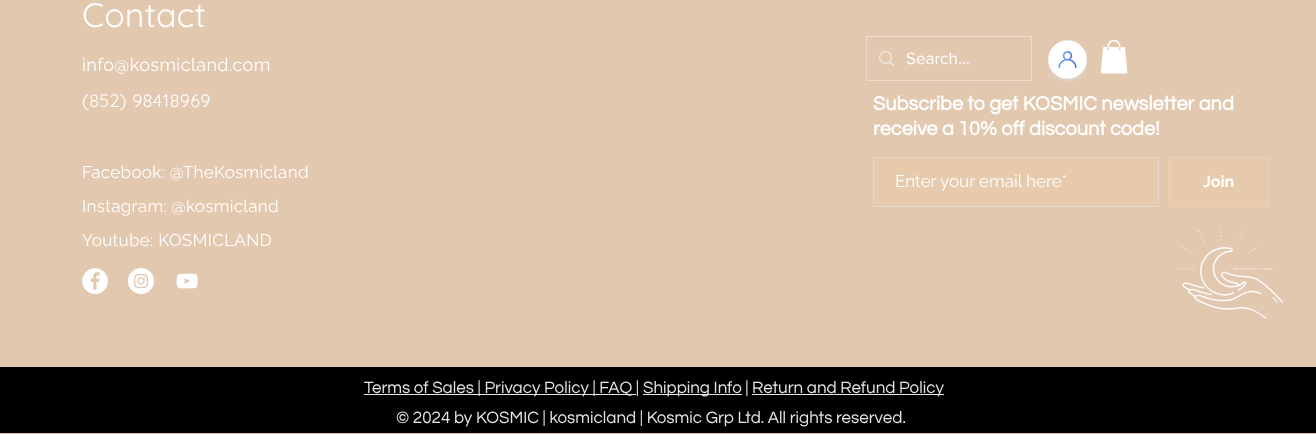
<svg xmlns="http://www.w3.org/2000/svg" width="1316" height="434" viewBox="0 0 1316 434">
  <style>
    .t1 { font: 34px Quicksand; fill: #fff; }
    .t2 { font: 18px Raleway; letter-spacing: 0.4px; fill: #fff; }
    .t3 { font: 18px Quicksand; letter-spacing: 0.4px; fill: #fff; }
    .t4 { font: 17px Raleway; letter-spacing: 0.3px; fill: #fff; }
    .t5 { font: bold 20px Questrial; fill: #fff; }
    .t6 { font: 17px Raleway; fill: #fff; }
    .t7 { font: bold 16px Raleway; fill: #fff; }
    .t8 { font: 17px Questrial; fill: #e5e5e5; }
    .t9 { font: 17px 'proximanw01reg'; fill: #fff; }
  </style>
  <rect width="100%" height="100%" fill="#dbb89a"/>
  <rect x="0" y="0" width="1316" height="367" fill="#e3c8b0"/>
  <text x="82" y="27" class="t1">Contact</text>
  <text x="82" y="71" class="t2">info@kosmicland.com</text>
  <text x="82" y="107" class="t3">(852) 98418969</text>
  <text x="82" y="178" class="t4">Facebook: @TheKosmicland</text>
  <text x="82" y="212" class="t4">Instagram: @kosmicland</text>
  <text x="82" y="246" class="t4">Youtube: KOSMICLAND</text>
  <image x="82" y="268" width="26" height="26" href="images/1.png"/>
  <image x="128" y="268" width="26" height="26" href="images/2.png"/>
  <image x="176" y="273" width="22" height="16" href="images/3.png"/>
  <text x="873" y="110" class="t5">Subscribe to get KOSMIC newsletter and</text>
  <text x="873" y="135" class="t5">receive a 10% off discount code!</text>
  <rect x="873.5" y="157.5" width="285" height="49" fill="#e7c9ab" stroke="#e8d7ca"/>
  <text x="895" y="187" class="t6">Enter your email here*</text>
  <rect x="1169.5" y="157.5" width="99" height="49" fill="#e7c9ac" stroke="#ebd2b9"/>
  <text x="1203" y="187" class="t7">Join</text>
  <image x="1178" y="228" width="106" height="91" href="images/4.png"/>
  <rect x="0" y="367" width="1316" height="66" fill="#000"/>
  <rect x="364" y="394" width="272" height="1" fill="#e5e5e5"/>
  <text x="364" y="393" class="t8">Terms of Sales | Privacy Policy | FAQ |</text>
  <rect x="643" y="394" width="99" height="1" fill="#e5e5e5"/>
  <text x="643" y="393" class="t8">Shipping Info |</text>
  <rect x="752" y="394" width="192" height="1" fill="#e5e5e5"/>
  <text x="752" y="393" class="t8">Return and Refund Policy</text>
  <text x="396" y="423" class="t8">© 2024 by KOSMIC | kosmicland | Kosmic Grp Ltd. All rights reserved.</text>
  <rect x="866.5" y="36.5" width="165" height="44" fill="none" stroke="#eeddce"/>
  <image x="879" y="51" width="15" height="15" href="images/5.png"/>
  <text x="906" y="64" class="t9">Search...</text>
  <image x="1047" y="40" width="41" height="42" href="images/6.png"/>
  <image x="1100" y="40" width="28" height="34" href="images/7.png"/>
</svg>
